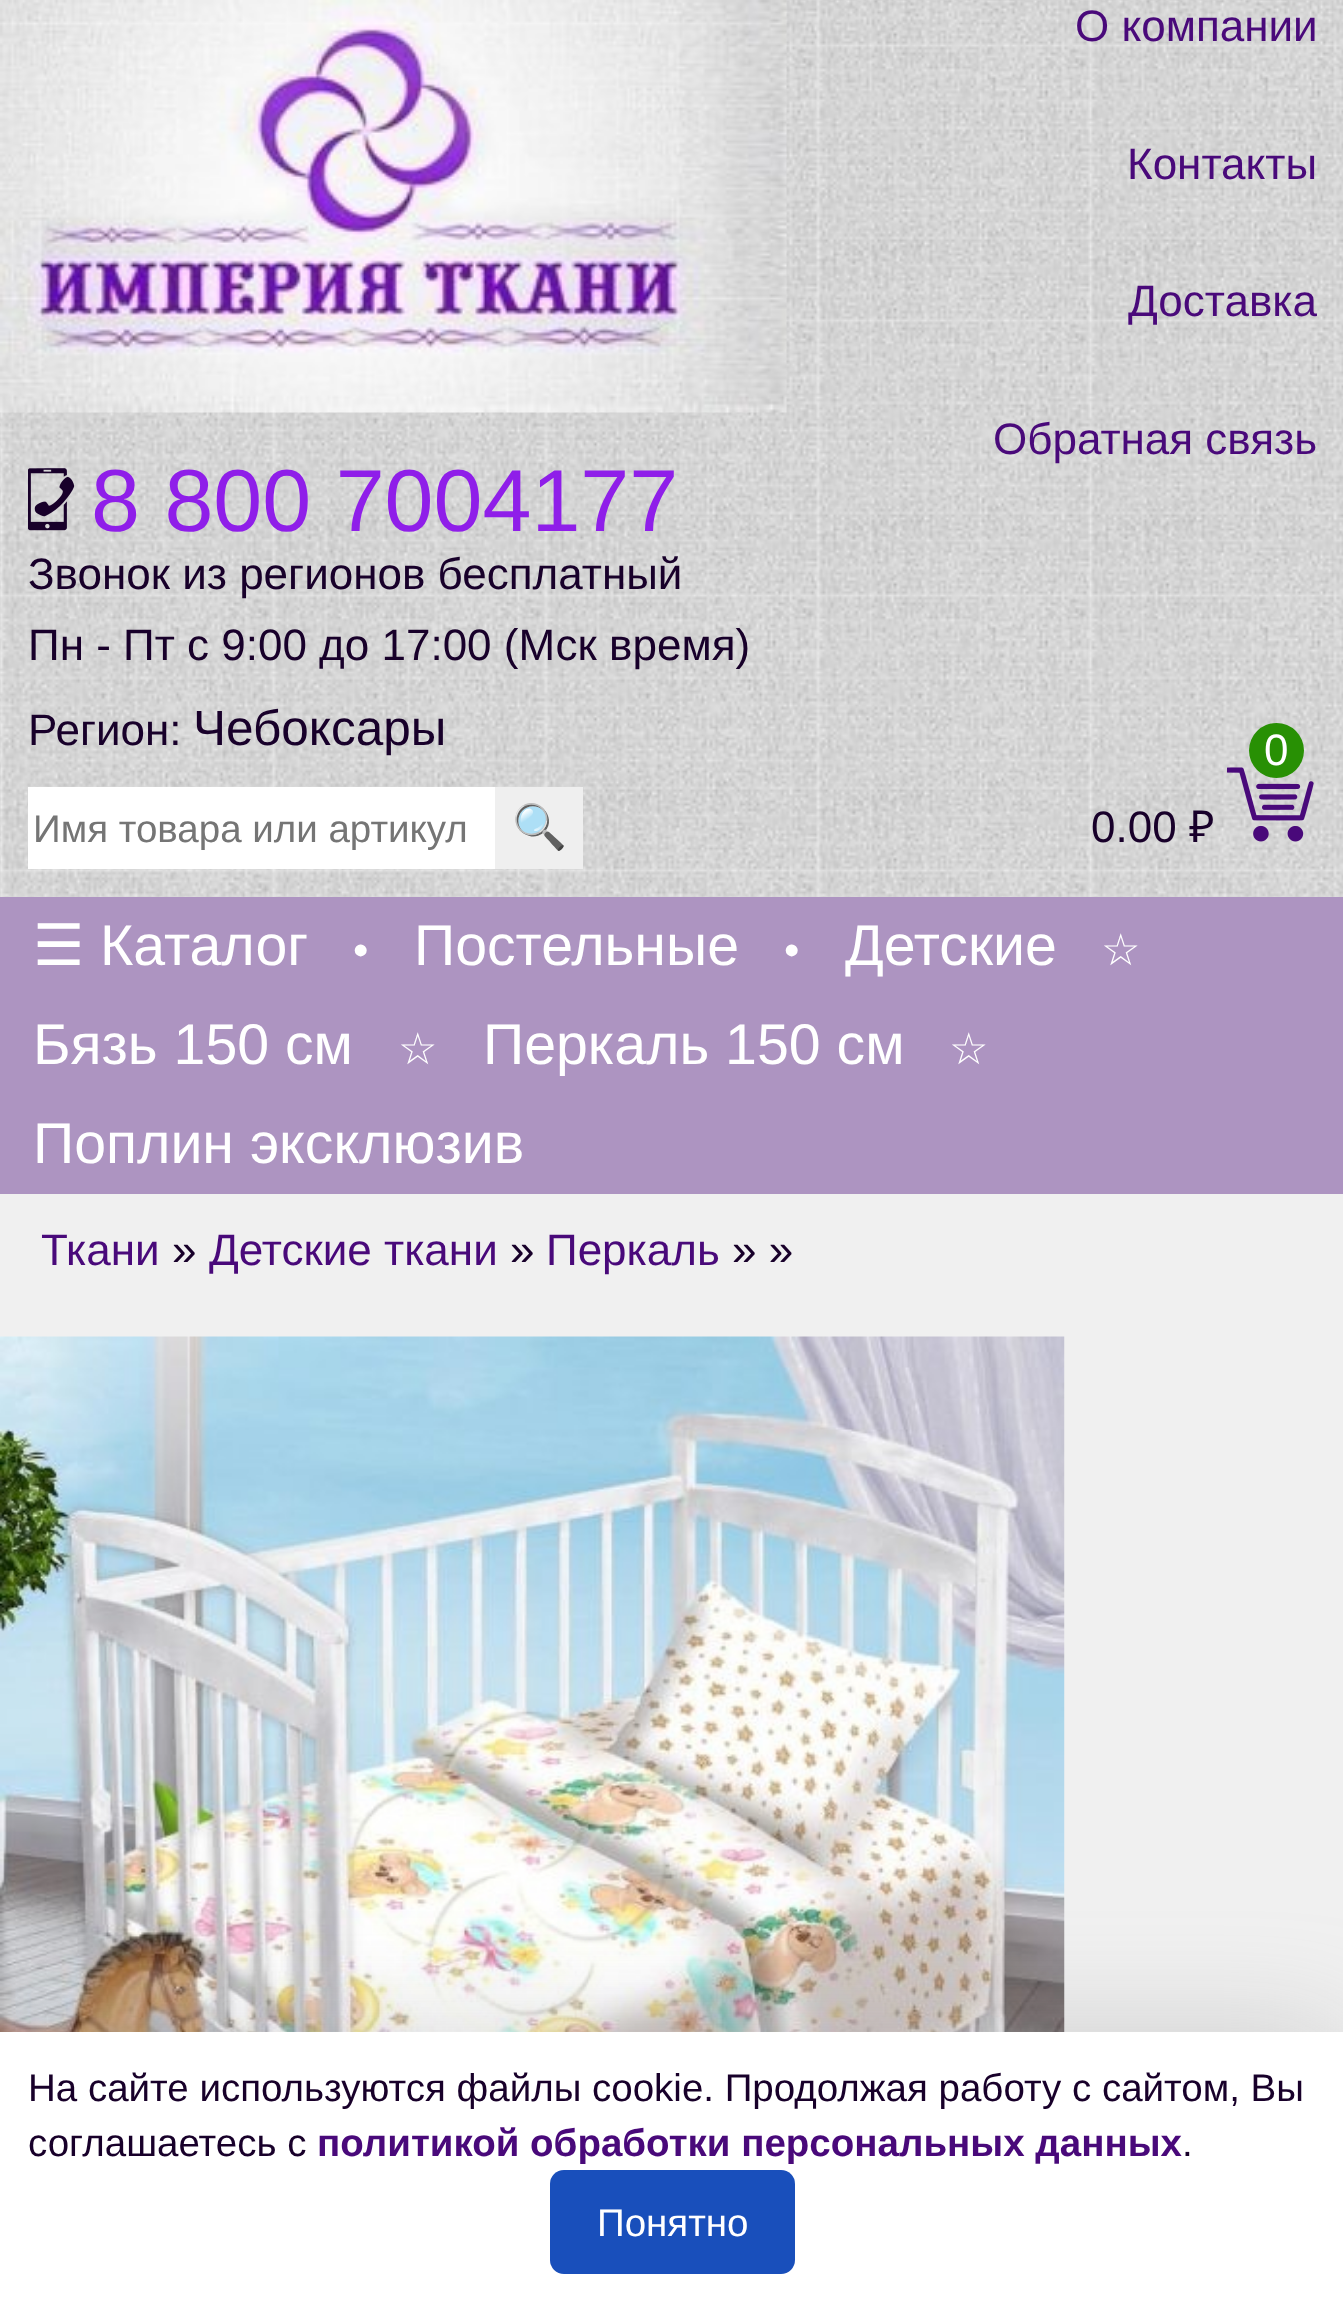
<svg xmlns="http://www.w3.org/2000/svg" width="1343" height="2301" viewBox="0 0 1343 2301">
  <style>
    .t1 { font: 44px Liberation Sans; fill: #49097a; }
    .t2 { font: 88px Liberation Sans; fill: #8f1ee9; }
    .t3 { font: 44px Liberation Sans; fill: #18002a; }
    .t4 { font: 49.5px Liberation Sans; fill: #18002a; }
    .t5 { font: 38.5px Liberation Sans; fill: #757575; }
    .t6 { font: 44px Noto Color Emoji; fill: #49097a; }
    .t7 { font: 44px Liberation Sans; fill: #fff; }
    .t8 { font: 44px Noto Sans; fill: #18002a; }
    .t9 { font: 57.25px DejaVu Sans; fill: #fff; }
    .t10 { font: 57.25px Liberation Sans; fill: #fff; }
    .t11 { font: 44px DejaVu Sans; fill: #fff; }
    .t12 { font: 38.5px Liberation Sans; fill: #18002a; }
    .t13 { font: bold 38.5px Liberation Sans; fill: #49097a; }
    .t14 { font: 38.5px Liberation Sans; fill: #fff; }
  </style>
  <rect width="100%" height="100%" fill="#f0f0f0"/>
  <image x="0" y="0" width="1343" height="897" href="images/1.png"/>
  <image x="0" y="0" width="787" height="413" href="images/2.png"/>
  <text x="1075" y="41" class="t1">О компании</text>
  <text x="1127" y="179" class="t1">Контакты</text>
  <text x="1128" y="316" class="t1">Доставка</text>
  <text x="993" y="454" class="t1">Обратная связь</text>
  <image x="28" y="468" width="47" height="63" href="images/3.png"/>
  <text x="91" y="531" class="t2">8 800 7004177</text>
  <text x="28" y="589" class="t3">Звонок из регионов бесплатный</text>
  <text x="28" y="660" class="t3">Пн - Пт с 9:00 до 17:00 (Мск время)</text>
  <text x="28" y="745" class="t3">Регион:</text>
  <text x="193" y="745" class="t4">Чебоксары</text>
  <rect x="28" y="787" width="467" height="82" fill="#fff"/>
  <text x="33" y="842" class="t5">Имя товара или артикул</text>
  <rect x="495" y="787" width="88" height="82" fill="#efefef"/>
  <text x="512" y="842" class="t6">🔍</text>
  <image x="1227" y="767" width="87" height="75" href="images/4.png"/>
  <circle cx="1276.5" cy="750.5" r="27.5" fill="#289004"/>
  <text x="1264" y="765" class="t7">0</text>
  <text x="1091" y="842" class="t3">0.00</text>
  <text x="1189" y="842" class="t8">₽</text>
  <rect x="0" y="897" width="1343" height="297" fill="#ad94c1"/>
  <text x="33" y="965" class="t9">☰</text>
  <text x="100" y="965" class="t10">Каталог</text>
  <text x="353" y="965" class="t7">•</text>
  <text x="414" y="965" class="t10">Постельные</text>
  <text x="784" y="965" class="t7">•</text>
  <text x="845" y="965" class="t10">Детские</text>
  <text x="1101" y="965" class="t11">☆</text>
  <text x="33" y="1064" class="t10">Бязь 150 см</text>
  <text x="398" y="1064" class="t11">☆</text>
  <text x="483" y="1064" class="t10">Перкаль 150 см</text>
  <text x="949" y="1064" class="t11">☆</text>
  <text x="33" y="1163" class="t10">Поплин эксклюзив</text>
  <text x="41" y="1265" class="t1">Ткани</text>
  <text x="172" y="1265" class="t3">»</text>
  <text x="209" y="1265" class="t1">Детские ткани</text>
  <text x="510" y="1265" class="t3">»</text>
  <text x="546" y="1265" class="t1">Перкаль</text>
  <text x="732" y="1265" class="t3">» »</text>
  <image x="0" y="1336" width="1065" height="696" href="images/5.png"/>
  <rect x="0" y="2032" width="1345" height="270" fill="#90909059" filter="blur(55px)"/>
  <rect x="0" y="2032" width="1343" height="269" fill="#fff"/>
  <text x="28" y="2101" class="t12">На сайте используются файлы cookie. Продолжая работу с сайтом, Вы</text>
  <text x="28" y="2156" class="t12">соглашаетесь с</text>
  <text x="317" y="2156" class="t13">политикой обработки персональных данных</text>
  <text x="1182" y="2156" class="t12">.</text>
  <rect x="550" y="2170" width="245" height="104" rx="14" fill="#194fbb"/>
  <text x="597" y="2236" class="t14">Понятно</text>
</svg>
